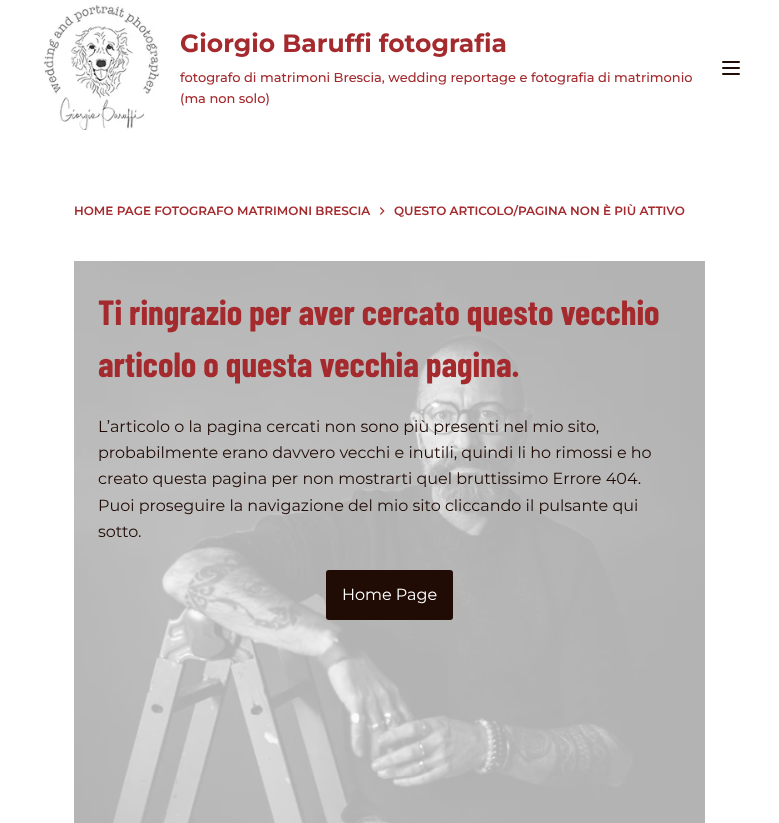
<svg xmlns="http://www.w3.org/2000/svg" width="779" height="823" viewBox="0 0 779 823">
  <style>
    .t1 { font: bold 25px Montserrat; fill: #a42a2e; }
    .t2 { font: 500 13px Montserrat; fill: #a42a2e; }
    .t3 { font: 600 12px Montserrat; fill: #a42a2e; }
    .t4 { font: bold 35px Barlow Condensed; fill: #a42a2e; }
    .t5 { font: 16px Montserrat; fill: #200c05; }
    .t6 { font: 16px Montserrat; fill: #fff; }
  </style>
  <rect width="100%" height="100%" fill="#fff"/>
  <image x="39" y="5" width="125" height="125" href="images/1.png"/>
  <text x="180" y="52" class="t1">Giorgio Baruffi fotografia</text>
  <text x="180" y="82" class="t2">fotografo di matrimoni Brescia, wedding reportage e fotografia di matrimonio</text>
  <text x="180" y="103" class="t2">(ma non solo)</text>
  <rect x="722" y="61" width="18" height="2" rx="1" fill="#200c05"/>
  <rect x="722" y="67" width="18" height="2" rx="1" fill="#200c05"/>
  <rect x="722" y="73" width="18" height="2" rx="1" fill="#200c05"/>
  <text x="74" y="215" class="t3">HOME PAGE FOTOGRAFO MATRIMONI BRESCIA</text>
  <image x="380" y="207" width="5" height="8" href="images/2.png"/>
  <text x="394" y="215" class="t3">QUESTO ARTICOLO/PAGINA NON È PIÙ ATTIVO</text>
  <image x="74" y="261" width="631" height="562" href="images/3.png"/>
  <text x="98" y="325" class="t4">Ti ringrazio per aver cercato questo vecchio</text>
  <text x="98" y="377" class="t4">articolo o questa vecchia pagina.</text>
  <text x="98" y="432" class="t5">L’articolo o la pagina cercati non sono più presenti nel mio sito,</text>
  <text x="98" y="458" class="t5">probabilmente erano davvero vecchi e inutili, quindi li ho rimossi e ho</text>
  <text x="98" y="484" class="t5">creato questa pagina per non mostrarti quel bruttissimo Errore 404.</text>
  <text x="98" y="511" class="t5">Puoi proseguire la navigazione del mio sito cliccando il pulsante qui</text>
  <text x="98" y="537" class="t5">sotto.</text>
  <rect x="326" y="570" width="127" height="50" rx="3" fill="#200c05"/>
  <text x="342" y="600" class="t6">Home Page</text>
</svg>
